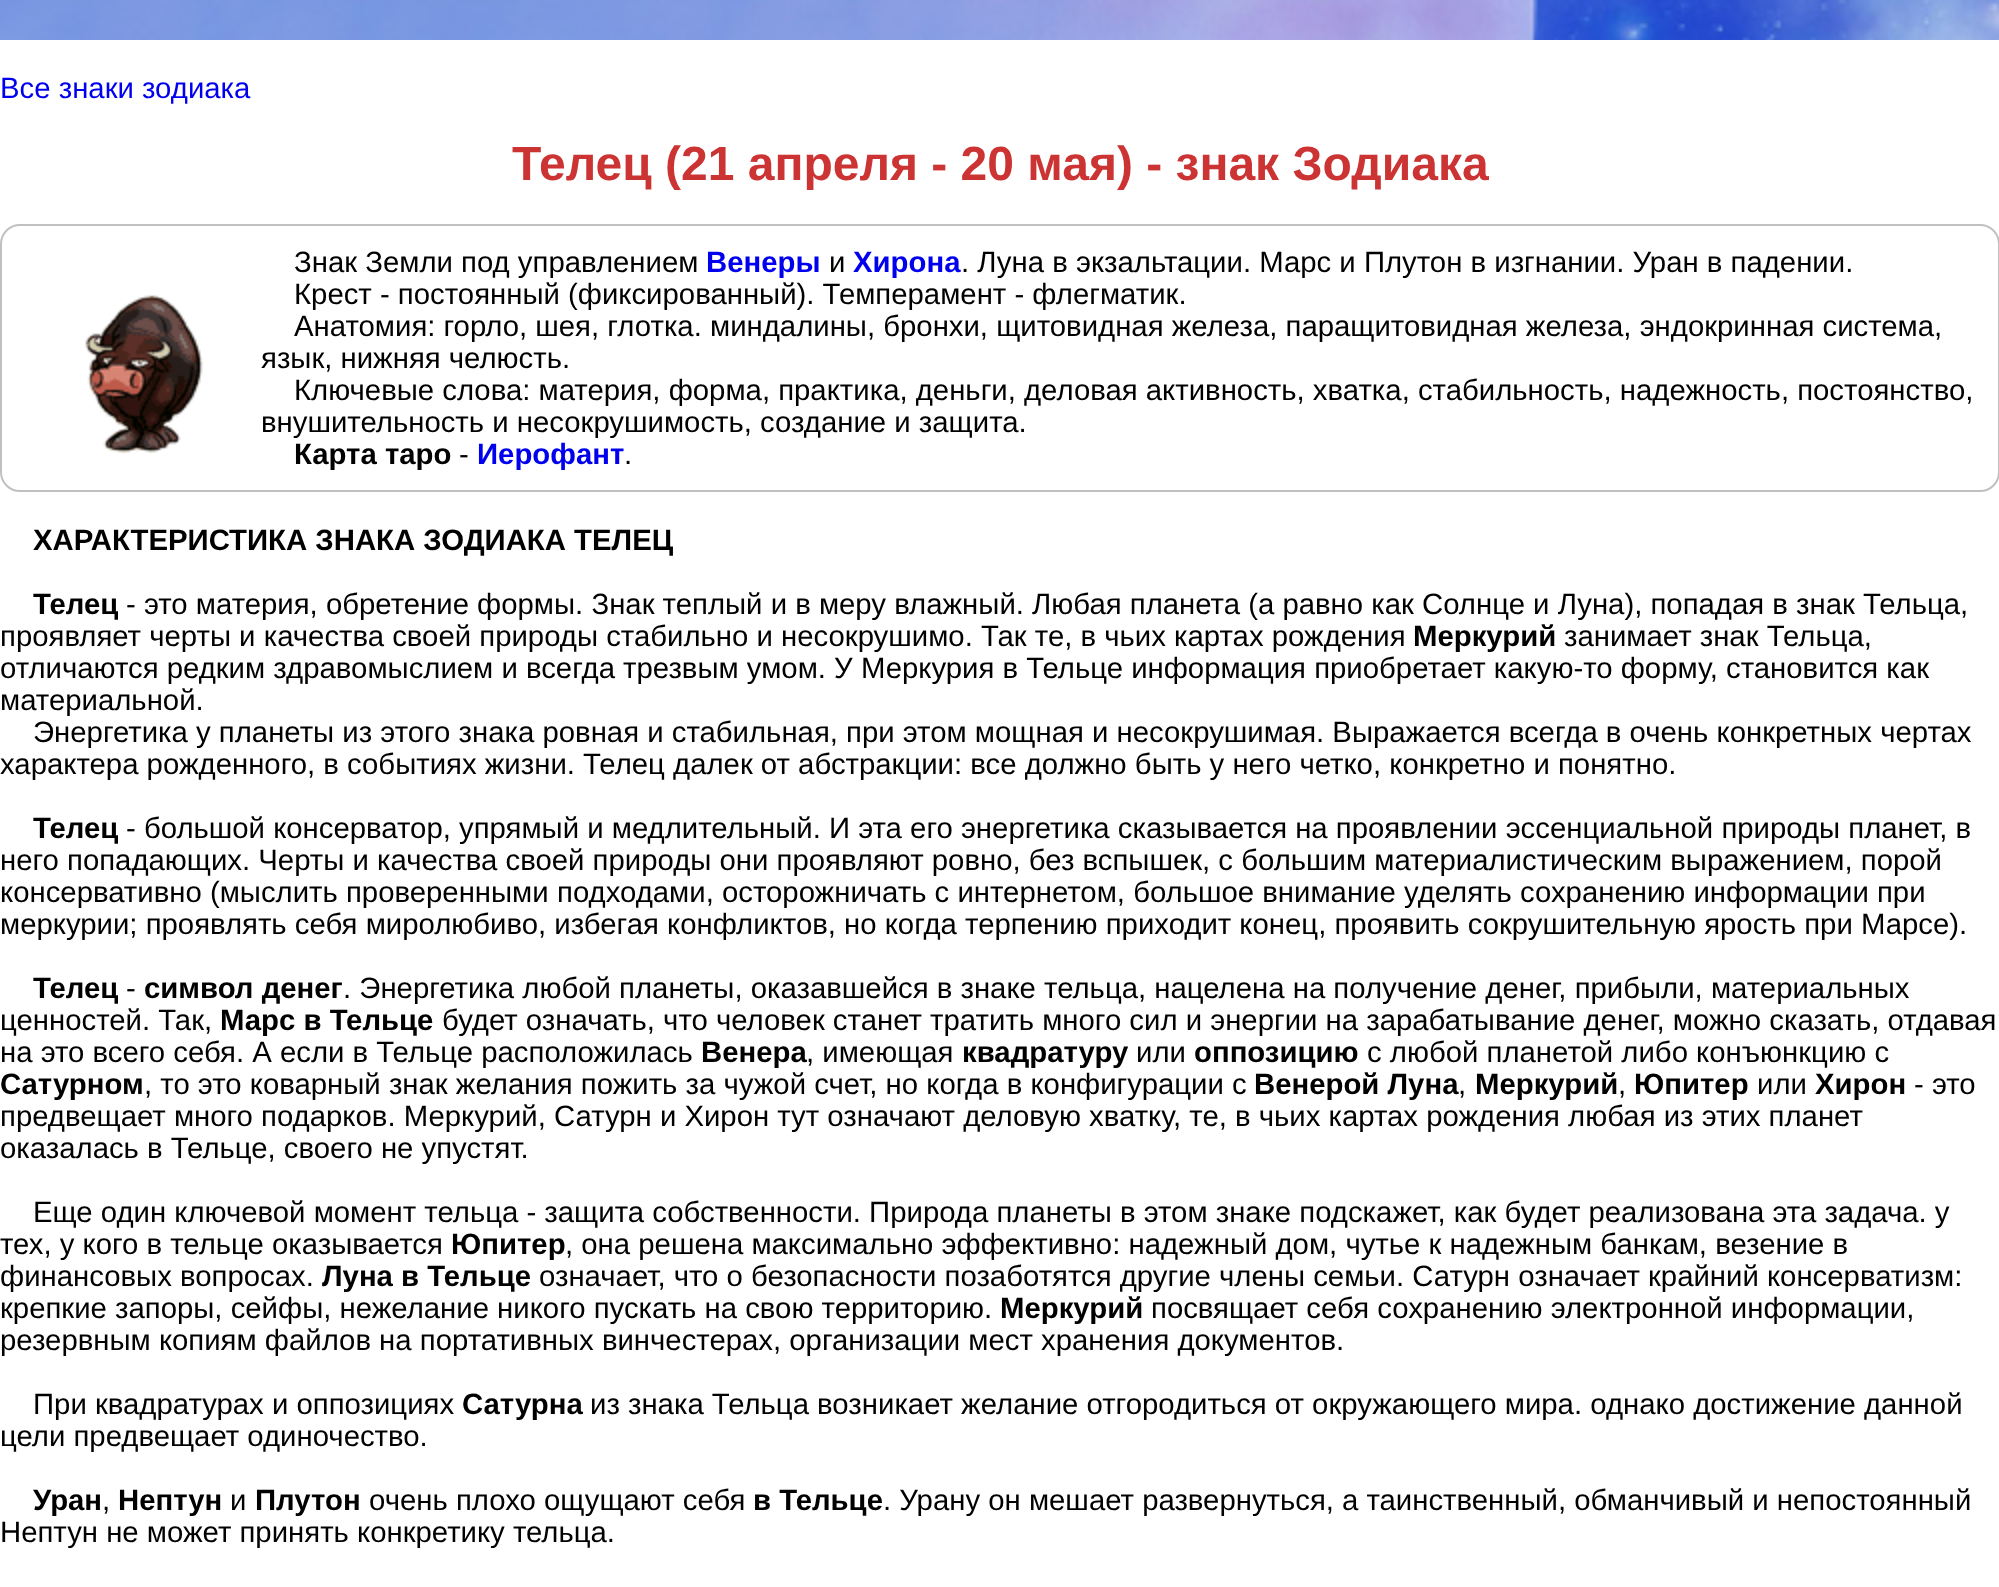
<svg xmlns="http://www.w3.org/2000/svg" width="1999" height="1587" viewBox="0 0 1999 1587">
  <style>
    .t1 { font: 29.33px Liberation Sans; fill: #00e; }
    .t2 { font: bold 48px Liberation Sans; fill: #c33; }
    .t3 { font: 29.33px Liberation Sans; fill: #000; }
    .t4 { font: bold 29.33px Liberation Sans; fill: #00e; }
    .t5 { font: bold 29.33px Liberation Sans; fill: #000; }
  </style>
  <rect width="100%" height="100%" fill="#fff"/>
  <image x="0" y="0" width="1999" height="40" href="images/1.png"/>
  <text x="0" y="98" class="t1">Все знаки зодиака</text>
  <text x="512" y="180" class="t2">Телец (21 апреля - 20 мая) - знак Зодиака</text>
  <rect x="1" y="225" width="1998" height="266" rx="19" fill="none" stroke="#c0c0c0" stroke-width="2"/>
  <text x="294" y="272" class="t3">Знак Земли под управлением</text>
  <text x="706" y="272" class="t4">Венеры</text>
  <text x="829" y="272" class="t3">и</text>
  <text x="853" y="272" class="t4">Хирона</text>
  <text x="961" y="272" class="t3">. Луна в экзальтации. Марс и Плутон в изгнании. Уран в падении.</text>
  <image x="85" y="295" width="118" height="159" href="images/2.png"/>
  <text x="294" y="304" class="t3">Крест - постоянный (фиксированный). Темперамент - флегматик.</text>
  <text x="294" y="336" class="t3">Анатомия: горло, шея, глотка. миндалины, бронхи, щитовидная железа, паращитовидная железа, эндокринная система,</text>
  <text x="261" y="368" class="t3">язык, нижняя челюсть.</text>
  <text x="294" y="400" class="t3">Ключевые слова: материя, форма, практика, деньги, деловая активность, хватка, стабильность, надежность, постоянство,</text>
  <text x="261" y="432" class="t3">внушительность и несокрушимость, создание и защита.</text>
  <text x="294" y="464" class="t5">Карта таро</text>
  <text x="459" y="464" class="t3">-</text>
  <text x="477" y="464" class="t4">Иерофант</text>
  <text x="624" y="464" class="t3">.</text>
  <text x="33" y="550" class="t5">ХАРАКТЕРИСТИКА ЗНАКА ЗОДИАКА ТЕЛЕЦ</text>
  <text x="33" y="614" class="t5">Телец</text>
  <text x="126" y="614" class="t3">- это материя, обретение формы. Знак теплый и в меру влажный. Любая планета (а равно как Солнце и Луна), попадая в знак Тельца,</text>
  <text x="0" y="646" class="t3">проявляет черты и качества своей природы стабильно и несокрушимо. Так те, в чьих картах рождения</text>
  <text x="1413" y="646" class="t5">Меркурий</text>
  <text x="1564" y="646" class="t3">занимает знак Тельца,</text>
  <text x="0" y="678" class="t3">отличаются редким здравомыслием и всегда</text>
  <text x="623" y="678" class="t3">трезвым умом. У Меркурия в Тельце информация приобретает какую-то форму, становится как</text>
  <text x="0" y="710" class="t3">материальной.</text>
  <text x="33" y="742" class="t3">Энергетика у планеты из этого знака ровная и стабильная, при этом мощная и несокрушимая. Выражается всегда в очень конкретных чертах</text>
  <text x="0" y="774" class="t3">характера рожденного, в событиях жизни. Телец далек от абстракции: все должно быть у него четко, конкретно и понятно.</text>
  <text x="33" y="838" class="t5">Телец</text>
  <text x="126" y="838" class="t3">- большой консерватор, упрямый и медлительный. И эта его энергетика сказывается на проявлении эссенциальной природы планет, в</text>
  <text x="0" y="870" class="t3">него попадающих. Черты и качества своей природы они проявляют ровно, без вспышек, с большим материалистическим выражением, порой</text>
  <text x="0" y="902" class="t3">консервативно (мыслить проверенными</text>
  <text x="557" y="902" class="t3">подходами, осторожничать с интернетом, большое внимание уделять сохранению информации при</text>
  <text x="0" y="934" class="t3">меркурии; проявлять себя миролюбиво, избегая конфликтов,</text>
  <text x="844" y="934" class="t3">но когда терпению приходит конец, проявить сокрушительную ярость при Марсе).</text>
  <text x="33" y="998" class="t5">Телец</text>
  <text x="126" y="998" class="t3">-</text>
  <text x="144" y="998" class="t5">символ денег</text>
  <text x="343" y="998" class="t3">. Энергетика любой планеты, оказавшейся в знаке тельца, нацелена на получение денег, прибыли, материальных</text>
  <text x="0" y="1030" class="t3">ценностей. Так,</text>
  <text x="220" y="1030" class="t5">Марс в Тельце</text>
  <text x="442" y="1030" class="t3">будет означать, что человек станет тратить много сил и энергии на зарабатывание денег, можно сказать, отдавая</text>
  <text x="0" y="1062" class="t3">на это всего себя. А если в Тельце расположилась</text>
  <text x="701" y="1062" class="t5">Венера</text>
  <text x="806" y="1062" class="t3">, имеющая</text>
  <text x="962" y="1062" class="t5">квадратуру</text>
  <text x="1136" y="1062" class="t3">или</text>
  <text x="1194" y="1062" class="t5">оппозицию</text>
  <text x="1367" y="1062" class="t3">с любой планетой либо конъюнкцию с</text>
  <text x="0" y="1094" class="t5">Сатурном</text>
  <text x="144" y="1094" class="t3">, то это коварный знак желания пожить за чужой счет, но когда в конфигурации с</text>
  <text x="1254" y="1094" class="t5">Венерой Луна</text>
  <text x="1458" y="1094" class="t3">,</text>
  <text x="1475" y="1094" class="t5">Меркурий</text>
  <text x="1618" y="1094" class="t3">,</text>
  <text x="1634" y="1094" class="t5">Юпитер</text>
  <text x="1757" y="1094" class="t3">или</text>
  <text x="1815" y="1094" class="t5">Хирон</text>
  <text x="1914" y="1094" class="t3">- это</text>
  <text x="0" y="1126" class="t3">предвещает много подарков. Меркурий, Сатурн и Хирон тут означают деловую хватку, те, в чьих картах рождения любая из этих планет</text>
  <text x="0" y="1158" class="t3">оказалась в Тельце, своего не упустят.</text>
  <text x="33" y="1222" class="t3">Еще один ключевой момент тельца - защита собственности. Природа планеты в этом знаке подскажет, как будет реализована эта задача. у</text>
  <text x="0" y="1254" class="t3">тех, у кого в тельце оказывается</text>
  <text x="451" y="1254" class="t5">Юпитер</text>
  <text x="565" y="1254" class="t3">, она решена максимально эффективно: надежный дом, чутье к надежным банкам, везение в</text>
  <text x="0" y="1286" class="t3">финансовых вопросах.</text>
  <text x="322" y="1286" class="t5">Луна в Тельце</text>
  <text x="539" y="1286" class="t3">означает, что о безопасности позаботятся другие члены семьи. Сатурн означает крайний консерватизм:</text>
  <text x="0" y="1318" class="t3">крепкие запоры, сейфы, нежелание никого пускать на свою территорию.</text>
  <text x="1000" y="1318" class="t5">Меркурий</text>
  <text x="1151" y="1318" class="t3">посвящает себя сохранению электронной информации,</text>
  <text x="0" y="1350" class="t3">резервным копиям файлов на портативных винчестерах, организации мест хранения документов.</text>
  <text x="33" y="1414" class="t3">При квадратурах и оппозициях</text>
  <text x="462" y="1414" class="t5">Сатурна</text>
  <text x="590" y="1414" class="t3">из знака Тельца возникает желание отгородиться от окружающего мира. однако достижение данной</text>
  <text x="0" y="1446" class="t3">цели предвещает одиночество.</text>
  <text x="33" y="1510" class="t5">Уран</text>
  <text x="102" y="1510" class="t3">,</text>
  <text x="118" y="1510" class="t5">Нептун</text>
  <text x="230" y="1510" class="t3">и</text>
  <text x="255" y="1510" class="t5">Плутон</text>
  <text x="369" y="1510" class="t3">очень плохо ощущают себя</text>
  <text x="753" y="1510" class="t5">в Тельце</text>
  <text x="883" y="1510" class="t3">. Урану он мешает развернуться,</text>
  <text x="1342" y="1510" class="t3">а таинственный, обманчивый и непостоянный</text>
  <text x="0" y="1542" class="t3">Нептун не может принять конкретику тельца.</text>
</svg>
